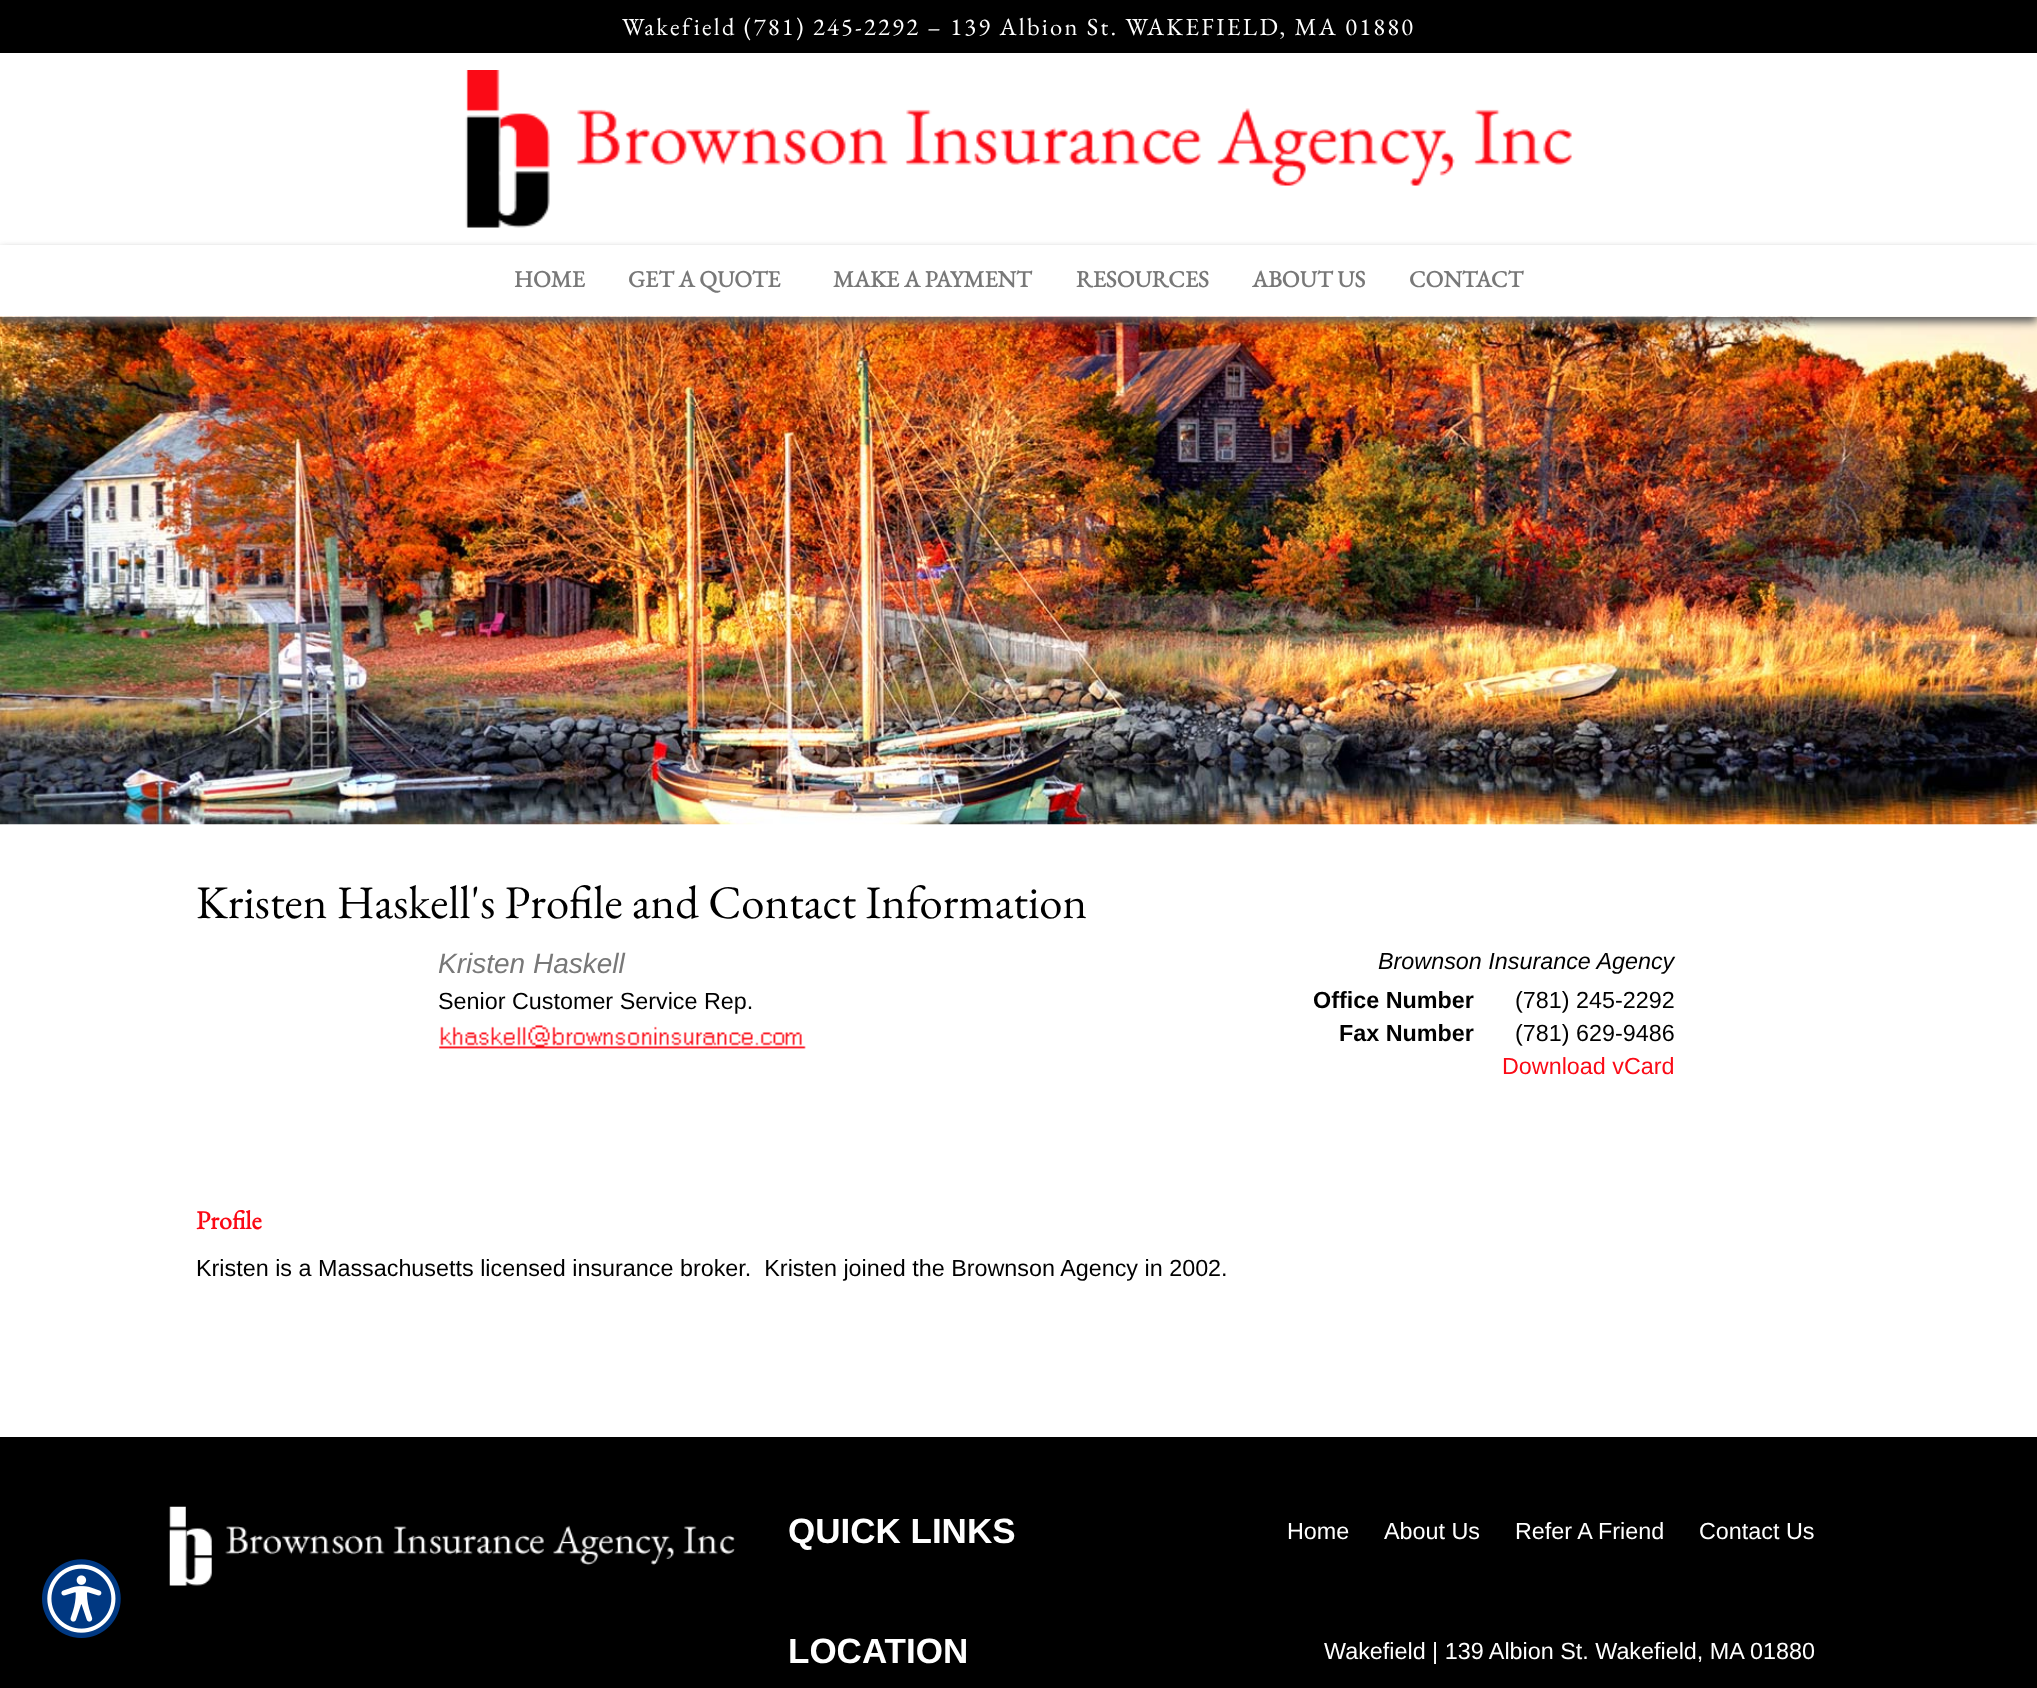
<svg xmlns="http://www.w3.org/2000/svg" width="2037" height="1688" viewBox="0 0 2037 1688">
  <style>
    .t1 { font: 24.5px EB Garamond; letter-spacing: 2.27px; fill: #fff; }
    .t2 { font: bold 23.35px EB Garamond; fill: #787878; }
    .t3 { font: 46.7px EB Garamond; fill: #000; }
    .t4 { font: italic 28px Liberation Sans; fill: #787878; }
    .t5 { font: 23.35px Liberation Sans; fill: #000; }
    .t6 { font: italic 23.35px Liberation Sans; fill: #000; }
    .t7 { font: bold 23.35px Liberation Sans; fill: #000; }
    .t8 { font: 23.35px Liberation Sans; fill: #fb0a16; }
    .t9 { font: bold 26px EB Garamond; fill: #fb0a16; }
    .t10 { font: bold 35px Liberation Sans; fill: #fff; }
    .t11 { font: 23.35px Liberation Sans; fill: #fff; }
  </style>
  <defs>
    <clipPath id="clip1"><path d="M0 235H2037V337H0ZM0 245H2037V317H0Z" clip-rule="evenodd"/></clipPath>
  </defs>
  <rect width="100%" height="100%" fill="#fff"/>
  <rect x="0" y="1437" width="2037" height="251" fill="#000"/>
  <image x="42" y="1559" width="79" height="79" href="images/1.png"/>
  <rect x="0" y="0" width="2037" height="53" fill="#000"/>
  <text x="622" y="35" class="t1">Wakefield (781) 245-2292 – 139 Albion St. WAKEFIELD, MA 01880</text>
  <image x="465" y="70" width="1107" height="158" href="images/2.png"/>
  <image x="0" y="316" width="2037" height="509" href="images/3.png"/>
  <g clip-path="url(#clip1)">
    <rect x="0" y="250" width="2037" height="72" fill="#5f5f5f" filter="blur(4.5px)"/>
  </g>
  <text x="514" y="287" class="t2">HOME</text>
  <text x="628" y="287" class="t2">GET A QUOTE</text>
  <text x="833" y="287" class="t2">MAKE A PAYMENT</text>
  <text x="1076" y="287" class="t2">RESOURCES</text>
  <text x="1252" y="287" class="t2">ABOUT US</text>
  <text x="1409" y="287" class="t2">CONTACT</text>
  <text x="196" y="918" class="t3">Kristen Haskell's Profile and Contact Information</text>
  <text x="438" y="973" class="t4">Kristen Haskell</text>
  <text x="438" y="1009" class="t5">Senior Customer Service Rep.</text>
  <image x="439" y="1025" width="367" height="24" href="images/4.png"/>
  <text x="1378" y="969" class="t6">Brownson Insurance Agency</text>
  <text x="1313" y="1008" class="t7">Office Number</text>
  <text x="1515" y="1008" class="t5">(781) 245-2292</text>
  <text x="1339" y="1041" class="t7">Fax Number</text>
  <text x="1515" y="1041" class="t5">(781) 629-9486</text>
  <text x="1502" y="1074" class="t8">Download vCard</text>
  <text x="196" y="1229" class="t9">Profile</text>
  <text x="196" y="1276" class="t5" xml:space="preserve">Kristen is a Massachusetts licensed insurance broker.  Kristen joined the Brownson Agency in 2002.</text>
  <image x="169" y="1506" width="566" height="80" href="images/5.png"/>
  <text x="788" y="1543" class="t10">QUICK LINKS</text>
  <text x="1287" y="1539" class="t11">Home</text>
  <text x="1384" y="1539" class="t11">About Us</text>
  <text x="1515" y="1539" class="t11">Refer A Friend</text>
  <text x="1699" y="1539" class="t11">Contact Us</text>
  <text x="788" y="1663" class="t10">LOCATION</text>
  <text x="1324" y="1659" class="t11">Wakefield | 139 Albion St. Wakefield, MA 01880</text>
</svg>
